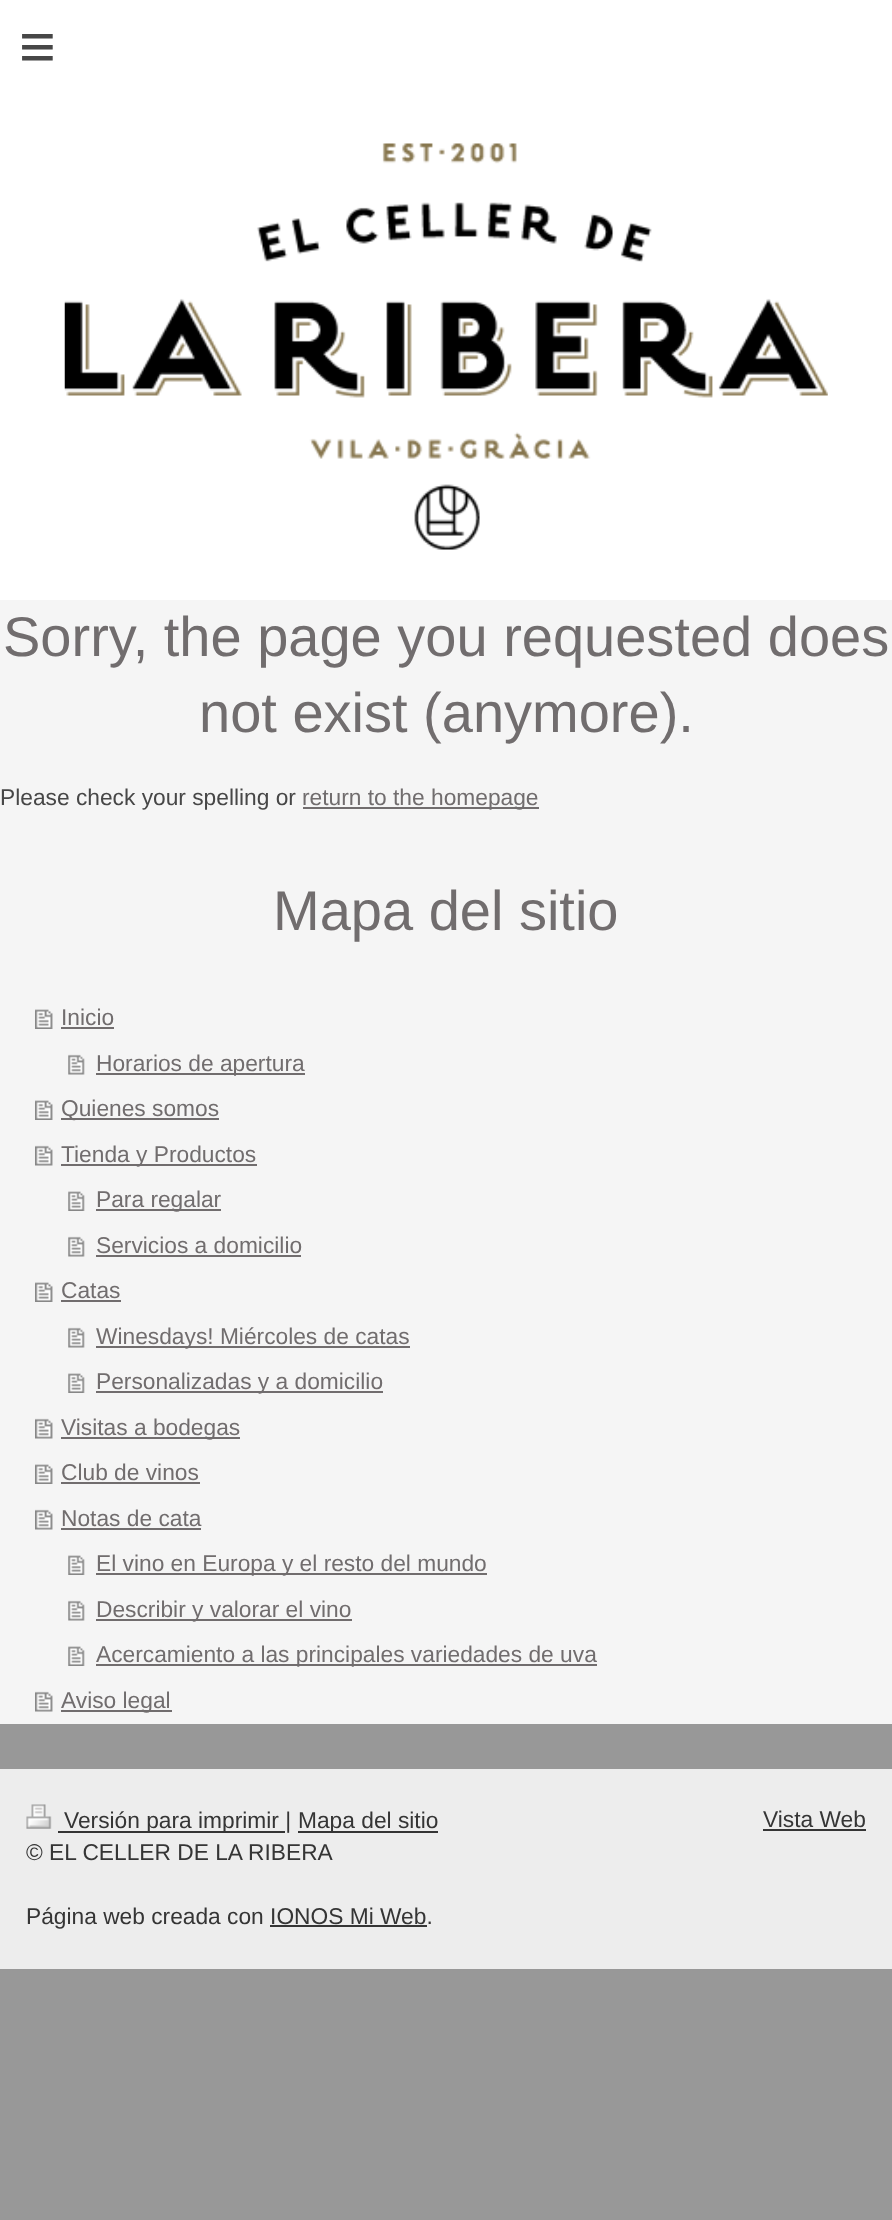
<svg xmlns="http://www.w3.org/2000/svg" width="892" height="2220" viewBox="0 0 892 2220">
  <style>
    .t1 { font: 63px Liberation Sans; letter-spacing: 18px; fill: #474747; }
    .t2 { font: 56px Liberation Sans; fill: #716d6e; }
    .t3 { font: 22.75px Liberation Sans; fill: #474747; }
    .t4 { font: 22.75px Liberation Sans; fill: #716d6e; }
    .t5 { font: 22.75px Liberation Sans; fill: #353535; }
  </style>
  <rect width="100%" height="100%" fill="#989898"/>
  <rect x="0" y="0" width="892" height="600" fill="#fff"/>
  <text x="19" y="68" class="t1">≡</text>
  <image x="64" y="143" width="764" height="407" href="images/1.png"/>
  <rect x="0" y="600" width="892" height="1124" fill="#f5f5f5"/>
  <text x="3" y="656" class="t2">Sorry, the page you requested does</text>
  <text x="199" y="732" class="t2">not exist (anymore).</text>
  <text x="0" y="805" class="t3">Please check your spelling or</text>
  <rect x="303" y="807" width="236" height="2" fill="#716d6e"/>
  <text x="302" y="805" class="t4">return to the homepage</text>
  <text x="273" y="930" class="t2">Mapa del sitio</text>
  <image x="35" y="1009" width="18" height="20" href="images/2.png"/>
  <text x="61" y="1025" class="t4">Inicio</text>
  <rect x="61" y="1027" width="53" height="2" fill="#716d6e"/>
  <image x="68" y="1054" width="17" height="21" href="images/3.png"/>
  <rect x="96" y="1073" width="209" height="2" fill="#716d6e"/>
  <text x="96" y="1071" class="t4">Horarios de apertura</text>
  <image x="35" y="1100" width="18" height="20" href="images/2.png"/>
  <rect x="61" y="1118" width="158" height="2" fill="#716d6e"/>
  <text x="61" y="1116" class="t4">Quienes somos</text>
  <image x="35" y="1145" width="18" height="21" href="images/4.png"/>
  <rect x="61" y="1164" width="196" height="2" fill="#716d6e"/>
  <text x="61" y="1162" class="t4">Tienda y Productos</text>
  <image x="68" y="1191" width="17" height="20" href="images/5.png"/>
  <rect x="96" y="1209" width="125" height="2" fill="#716d6e"/>
  <text x="96" y="1207" class="t4">Para regalar</text>
  <image x="68" y="1236" width="17" height="21" href="images/3.png"/>
  <text x="96" y="1253" class="t4">Servicios a domicilio</text>
  <rect x="96" y="1255" width="205" height="2" fill="#716d6e"/>
  <image x="35" y="1282" width="18" height="20" href="images/2.png"/>
  <text x="61" y="1298" class="t4">Catas</text>
  <rect x="61" y="1300" width="60" height="2" fill="#716d6e"/>
  <image x="68" y="1327" width="17" height="21" href="images/3.png"/>
  <rect x="96" y="1346" width="314" height="2" fill="#716d6e"/>
  <text x="96" y="1344" class="t4">Winesdays! Miércoles de catas</text>
  <image x="68" y="1373" width="17" height="20" href="images/5.png"/>
  <rect x="96" y="1391" width="287" height="2" fill="#716d6e"/>
  <text x="96" y="1389" class="t4">Personalizadas y a domicilio</text>
  <image x="35" y="1418" width="18" height="21" href="images/4.png"/>
  <rect x="61" y="1437" width="179" height="2" fill="#716d6e"/>
  <text x="61" y="1435" class="t4">Visitas a bodegas</text>
  <image x="35" y="1464" width="18" height="20" href="images/2.png"/>
  <text x="61" y="1480" class="t4">Club de vinos</text>
  <rect x="61" y="1482" width="139" height="2" fill="#716d6e"/>
  <image x="35" y="1509" width="18" height="21" href="images/4.png"/>
  <text x="61" y="1526" class="t4">Notas de cata</text>
  <rect x="61" y="1528" width="140" height="2" fill="#716d6e"/>
  <image x="68" y="1555" width="17" height="20" href="images/5.png"/>
  <rect x="96" y="1573" width="391" height="2" fill="#716d6e"/>
  <text x="96" y="1571" class="t4">El vino en Europa y el resto del mundo</text>
  <image x="68" y="1600" width="17" height="21" href="images/3.png"/>
  <rect x="96" y="1619" width="256" height="2" fill="#716d6e"/>
  <text x="96" y="1617" class="t4">Describir y valorar el vino</text>
  <image x="68" y="1646" width="17" height="20" href="images/5.png"/>
  <rect x="96" y="1664" width="501" height="2" fill="#716d6e"/>
  <text x="96" y="1662" class="t4">Acercamiento a las principales variedades de uva</text>
  <image x="35" y="1691" width="18" height="21" href="images/4.png"/>
  <rect x="61" y="1710" width="111" height="2" fill="#716d6e"/>
  <text x="61" y="1708" class="t4">Aviso legal</text>
  <rect x="0" y="1769" width="892" height="200" fill="#ededed"/>
  <image x="26" y="1804" width="26" height="25" href="images/6.png"/>
  <rect x="58" y="1831" width="227" height="2" fill="#353535"/>
  <text x="64" y="1828" class="t5">Versión para imprimir |</text>
  <rect x="298" y="1831" width="140" height="2" fill="#353535"/>
  <text x="298" y="1828" class="t5">Mapa del sitio</text>
  <text x="26" y="1860" class="t5">© EL CELLER DE LA RIBERA</text>
  <text x="26" y="1924" class="t5">Página web creada con IONOS Mi Web.</text>
  <rect x="270" y="1925" width="157" height="2" fill="#353535"/>
  <text x="763" y="1827" class="t5">Vista Web</text>
  <rect x="763" y="1829" width="103" height="2" fill="#353535"/>
</svg>
